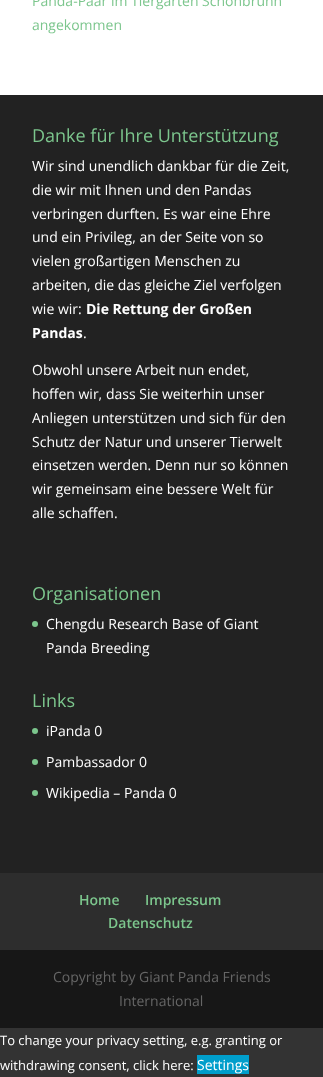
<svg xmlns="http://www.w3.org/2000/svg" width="323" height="1077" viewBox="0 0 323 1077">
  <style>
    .t1 { font: 14px Open Sans; fill: #7cc68d; }
    .t2 { font: 18px Open Sans; fill: #7cc68d; }
    .t3 { font: 14px Open Sans; fill: #fff; }
    .t4 { font: bold 14px Open Sans; fill: #fff; }
    .t5 { font: 600 14px Open Sans; fill: #7cc68d; }
    .t6 { font: 14px Open Sans; fill: #666; }
    .t7 { font: 13px Open Sans; fill: #fff; }
  </style>
  <rect width="100%" height="100%" fill="#fff"/>
  <text x="32" y="6" class="t1">Panda-Paar im Tiergarten Schönbrunn</text>
  <text x="32" y="30" class="t1">angekommen</text>
  <rect x="0" y="95" width="323" height="778" fill="#222"/>
  <text x="32" y="142" class="t2">Danke für Ihre Unterstützung</text>
  <text x="32" y="171" class="t3">Wir sind unendlich dankbar für die Zeit,</text>
  <text x="32" y="195" class="t3">die wir mit Ihnen und den Pandas</text>
  <text x="32" y="219" class="t3">verbringen durften. Es war eine Ehre</text>
  <text x="32" y="242" class="t3">und ein Privileg, an der Seite von so</text>
  <text x="32" y="266" class="t3">vielen großartigen Menschen zu</text>
  <text x="32" y="290" class="t3">arbeiten, die das gleiche Ziel verfolgen</text>
  <text x="32" y="314" class="t3">wie wir:</text>
  <text x="86" y="314" class="t4">Die Rettung der Großen</text>
  <text x="32" y="338" class="t4">Pandas</text>
  <text x="83" y="338" class="t3">.</text>
  <text x="32" y="375" class="t3">Obwohl unsere Arbeit nun endet,</text>
  <text x="32" y="399" class="t3">hoffen wir, dass Sie weiterhin unser</text>
  <text x="32" y="423" class="t3">Anliegen unterstützen und sich für den</text>
  <text x="32" y="447" class="t3">Schutz der Natur und unserer Tierwelt</text>
  <text x="32" y="470" class="t3">einsetzen werden. Denn nur so können</text>
  <text x="32" y="494" class="t3">wir gemeinsam eine bessere Welt für</text>
  <text x="32" y="518" class="t3">alle schaffen.</text>
  <text x="32" y="600" class="t2">Organisationen</text>
  <circle cx="35" cy="624" r="3" fill="#7cc68d"/>
  <text x="46" y="629" class="t3">Chengdu Research Base of Giant</text>
  <text x="46" y="653" class="t3">Panda Breeding</text>
  <text x="32" y="707" class="t2">Links</text>
  <circle cx="35" cy="731" r="3" fill="#7cc68d"/>
  <text x="46" y="736" class="t3">iPanda 0</text>
  <circle cx="35" cy="762" r="3" fill="#7cc68d"/>
  <text x="46" y="767" class="t3">Pambassador 0</text>
  <circle cx="35" cy="793" r="3" fill="#7cc68d"/>
  <text x="46" y="798" class="t3">Wikipedia – Panda 0</text>
  <rect x="0" y="873" width="323" height="77" fill="#2d2d2d"/>
  <text x="79" y="905" class="t5">Home</text>
  <text x="145" y="905" class="t5">Impressum</text>
  <text x="108" y="928" class="t5">Datenschutz</text>
  <rect x="0" y="950" width="323" height="78" fill="#171717"/>
  <text x="53" y="982" class="t6">Copyright by Giant Panda Friends</text>
  <text x="119" y="1006" class="t6">International</text>
  <rect x="0" y="1028" width="323" height="49" fill="#333"/>
  <text x="0" y="1045" class="t7">To change your privacy setting, e.g. granting or</text>
  <text x="0" y="1070" class="t7">withdrawing consent, click here:</text>
  <rect x="197" y="1055" width="52" height="19" fill="#009ecb"/>
  <text x="197" y="1070" class="t3">Settings</text>
</svg>
